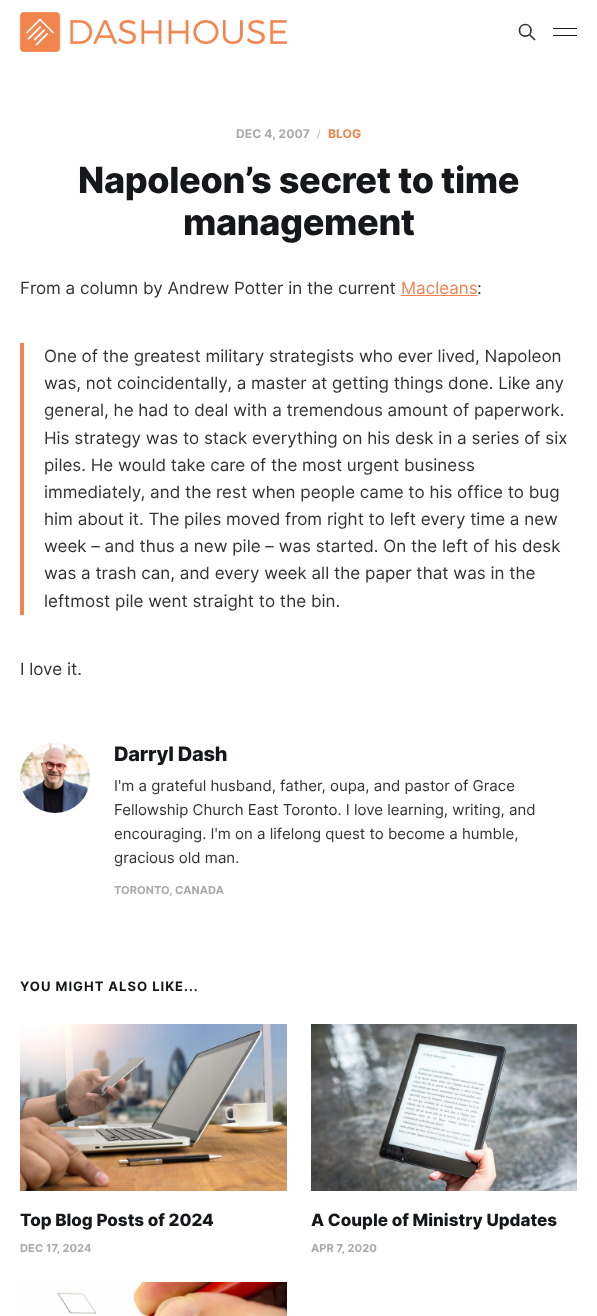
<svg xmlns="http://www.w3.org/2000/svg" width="597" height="1316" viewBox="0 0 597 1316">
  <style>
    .t1 { font: bold 12px Inter; letter-spacing: 0.1px; fill: #aaa; }
    .t2 { font: bold 12px Liberation Serif; letter-spacing: 0.1px; fill: #aaa; }
    .t3 { font: bold 12px Inter; letter-spacing: 0.1px; fill: #f0834f; }
    .t4 { font: 800 36px Inter; letter-spacing: -0.35px; fill: #15171a; }
    .t5 { font: 17px Inter; fill: #333; }
    .t6 { font: 17px Inter; fill: #f0834f; }
    .t7 { font: 800 20px Inter; letter-spacing: -0.25px; fill: #15171a; }
    .t8 { font: 15px Inter; fill: #333; }
    .t9 { font: bold 11px Inter; letter-spacing: 0.1px; fill: #aaa; }
    .t10 { font: bold 13px Inter; letter-spacing: 1px; fill: #15171a; }
    .t11 { font: 800 17px Inter; fill: #15171a; }
  </style>
  <rect width="100%" height="100%" fill="#fff"/>
  <image x="20" y="12" width="267" height="40" href="images/1.png"/>
  <path d="M534.5 39.5L529.5 34.5M531 30.5C531 38 519.5 38 519.5 30.5C519.5 22.5 531 22.5 531 30.5Z" fill="none" stroke="#333" stroke-width="1.7" stroke-linecap="round" stroke-linejoin="round"/>
  <rect x="553" y="28" width="24" height="1" fill="#15171a"/>
  <rect x="553" y="35" width="24" height="1" fill="#15171a"/>
  <text x="236" y="138" class="t1">DEC 4, 2007</text>
  <text x="317" y="138" class="t2">/</text>
  <text x="328" y="138" class="t3">BLOG</text>
  <text x="78" y="193" class="t4">Napoleon’s secret to time</text>
  <text x="183" y="235" class="t4">management</text>
  <text x="20" y="294" class="t5">From a column by Andrew Potter in the current</text>
  <text x="401" y="294" class="t6">Macleans</text>
  <rect x="401" y="295" width="76" height="1" fill="#f0834f"/>
  <text x="477" y="294" class="t5">:</text>
  <rect x="20" y="343" width="4" height="272" fill="#f0834f"/>
  <text x="44" y="362" class="t5">One of the greatest military strategists who ever lived, Napoleon</text>
  <text x="44" y="389" class="t5">was, not coincidentally, a master at getting things done. Like any</text>
  <text x="44" y="416" class="t5">general, he had to deal with a tremendous amount of paperwork.</text>
  <text x="44" y="444" class="t5">His strategy was to stack everything on his desk in a series of six</text>
  <text x="44" y="471" class="t5">piles. He would take care of the most urgent business</text>
  <text x="44" y="498" class="t5">immediately, and the rest when people came to his office to bug</text>
  <text x="44" y="525" class="t5">him about it. The piles moved from right to left every time a new</text>
  <text x="44" y="552" class="t5">week – and thus a new pile – was started. On the left of his desk</text>
  <text x="44" y="579" class="t5">was a trash can, and every week all the paper that was in the</text>
  <text x="44" y="607" class="t5">leftmost pile went straight to the bin.</text>
  <text x="20" y="675" class="t5">I love it.</text>
  <circle cx="55" cy="778" r="35" fill="#f1f1f1"/>
  <image x="20" y="743" width="70" height="70" href="images/2.png"/>
  <text x="114" y="761" class="t7">Darryl Dash</text>
  <text x="114" y="791" class="t8">I'm a grateful husband, father, oupa, and pastor of Grace</text>
  <text x="114" y="815" class="t8">Fellowship Church East Toronto. I love learning, writing, and</text>
  <text x="114" y="839" class="t8">encouraging. I'm on a lifelong quest to become a humble,</text>
  <text x="114" y="863" class="t8">gracious old man.</text>
  <text x="114" y="894" class="t9">TORONTO, CANADA</text>
  <text x="20" y="991" class="t10">YOU MIGHT ALSO LIKE...</text>
  <image x="20" y="1024" width="267" height="167" href="images/3.png"/>
  <text x="20" y="1226" class="t11">Top Blog Posts of 2024</text>
  <text x="20" y="1252" class="t9">DEC 17, 2024</text>
  <image x="311" y="1024" width="266" height="167" href="images/4.png"/>
  <text x="311" y="1226" class="t11">A Couple of Ministry Updates</text>
  <text x="311" y="1252" class="t9">APR 7, 2020</text>
  <image x="20" y="1282" width="267" height="34" href="images/5.png"/>
</svg>
